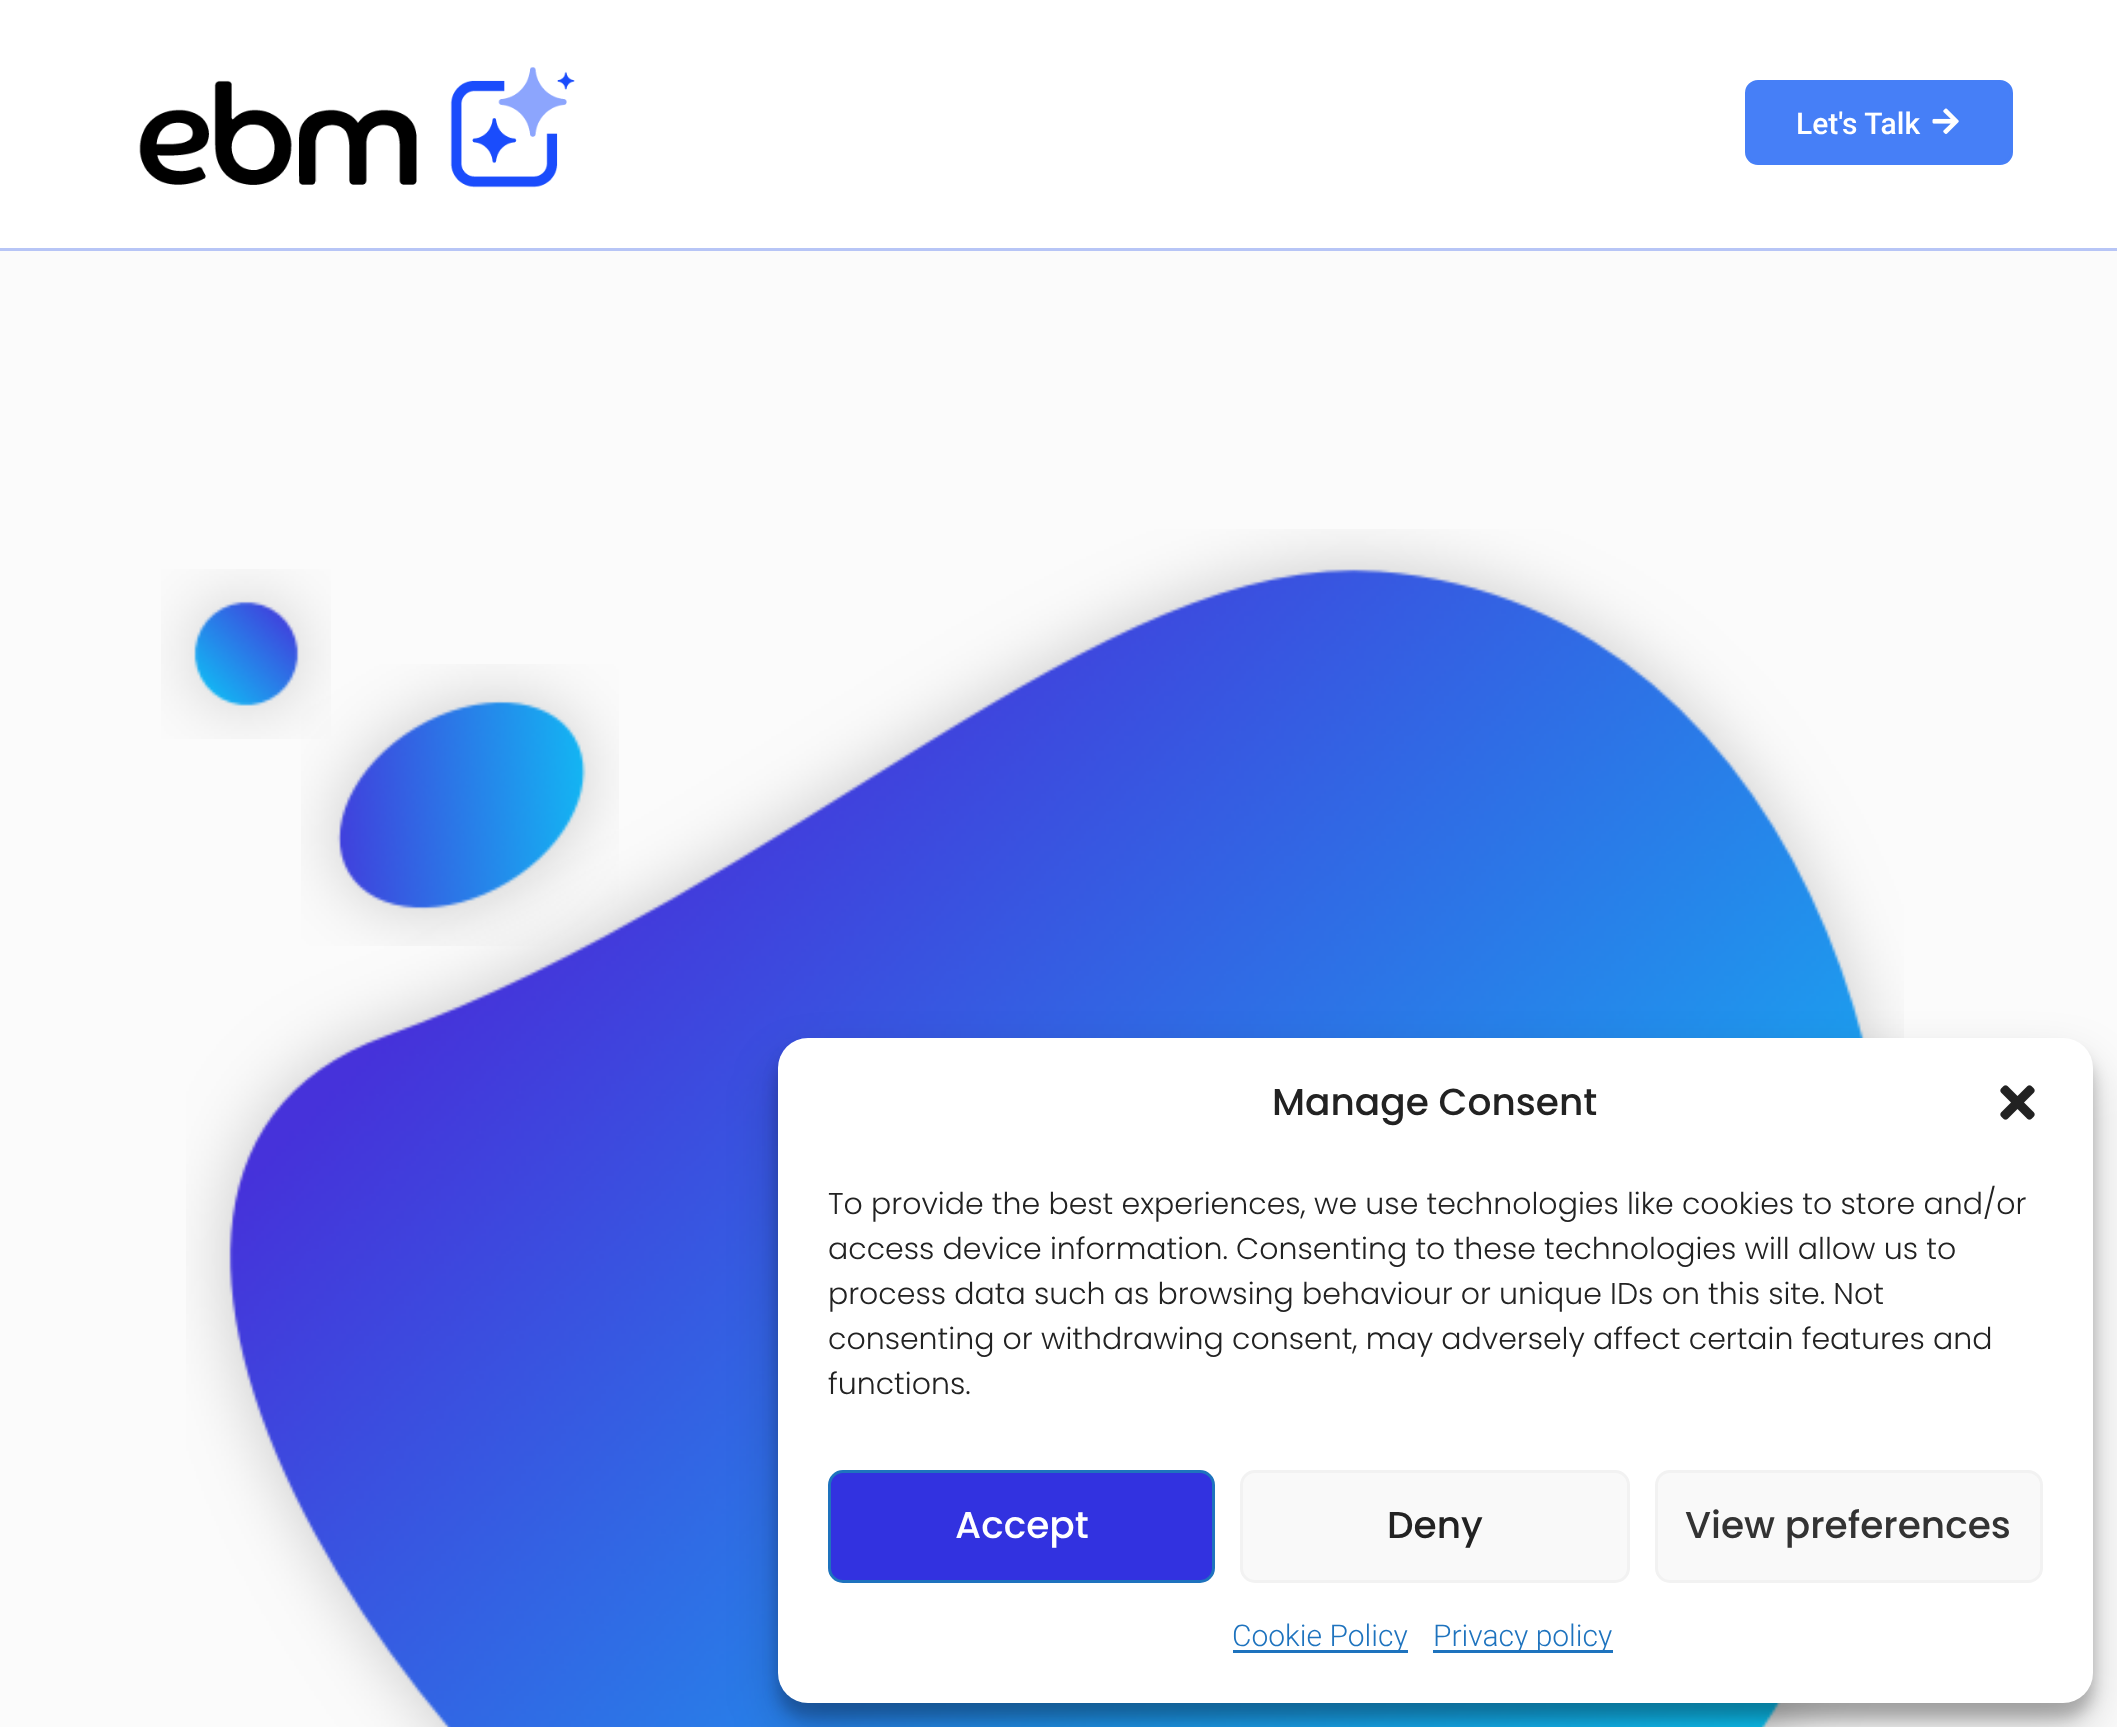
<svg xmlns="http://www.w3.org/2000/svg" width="2117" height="1727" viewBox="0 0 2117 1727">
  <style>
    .t1 { font: 500 30px Roboto; fill: #fff; }
    .t2 { font: 500 37.5px Poppins; fill: #222; }
    .t3 { font: 300 30px Poppins; fill: #222; }
    .t4 { font: 500 37.5px Poppins; fill: #fff; }
    .t5 { font: 500 37.5px Poppins; fill: #333; }
    .t6 { font: 300 30px Roboto; fill: #1e73be; }
  </style>
  <rect width="100%" height="100%" fill="#fbfbfb"/>
  <rect x="0" y="0" width="2117" height="248" fill="#fff"/>
  <rect x="0" y="248" width="2117" height="3" fill="#b7c5f6"/>
  <image x="139" y="67" width="436" height="121" href="images/1.png"/>
  <rect x="1746.5" y="81.5" width="265" height="82" rx="11.5" fill="#467ff7" stroke="#467ff7" stroke-width="3"/>
  <text x="1796" y="134" class="t1">Let's Talk</text>
  <image x="1932" y="108" width="27" height="26" href="images/2.png"/>
  <image x="186" y="529" width="1718" height="1198" href="images/3.png"/>
  <image x="301" y="664" width="318" height="282" href="images/5.png"/>
  <image x="161" y="569" width="170" height="170" href="images/4.png"/>
  <rect x="778" y="1053" width="1315" height="665" rx="30" fill="#0000003b" filter="blur(7.5px)"/>
  <rect x="778" y="1063" width="1315" height="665" rx="30" fill="#00000030" filter="blur(25px)"/>
  <rect x="778" y="1038" width="1315" height="665" rx="30" fill="#fff"/>
  <text x="1272" y="1115" class="t2">Manage Consent</text>
  <image x="2000" y="1085" width="35" height="35" href="images/6.png"/>
  <text x="828" y="1214" class="t3">To provide the best experiences, we use technologies like cookies to store and/or</text>
  <text x="828" y="1259" class="t3">access device information. Consenting to these technologies will allow us to</text>
  <text x="828" y="1304" class="t3">process data such as browsing behaviour or unique IDs on this site. Not</text>
  <text x="828" y="1349" class="t3">consenting or withdrawing consent, may adversely affect certain features and</text>
  <text x="828" y="1394" class="t3">functions.</text>
  <rect x="829.5" y="1471.5" width="384" height="110" rx="13.5" fill="#3232e0" stroke="#1e73be" stroke-width="3"/>
  <text x="955" y="1538" class="t4">Accept</text>
  <rect x="1241.5" y="1471.5" width="387" height="110" rx="13.5" fill="#f9f9f9" stroke="#f2f2f2" stroke-width="3"/>
  <text x="1387" y="1538" class="t2">Deny</text>
  <rect x="1656.5" y="1471.5" width="385" height="110" rx="13.5" fill="#f9f9f9" stroke="#f2f2f2" stroke-width="3"/>
  <text x="1685" y="1538" class="t5">View preferences</text>
  <rect x="1233" y="1650" width="175" height="3" fill="#1e73be"/>
  <text x="1232" y="1646" class="t6">Cookie Policy</text>
  <rect x="1433" y="1650" width="180" height="3" fill="#1e73be"/>
  <text x="1433" y="1646" class="t6">Privacy policy</text>
</svg>
